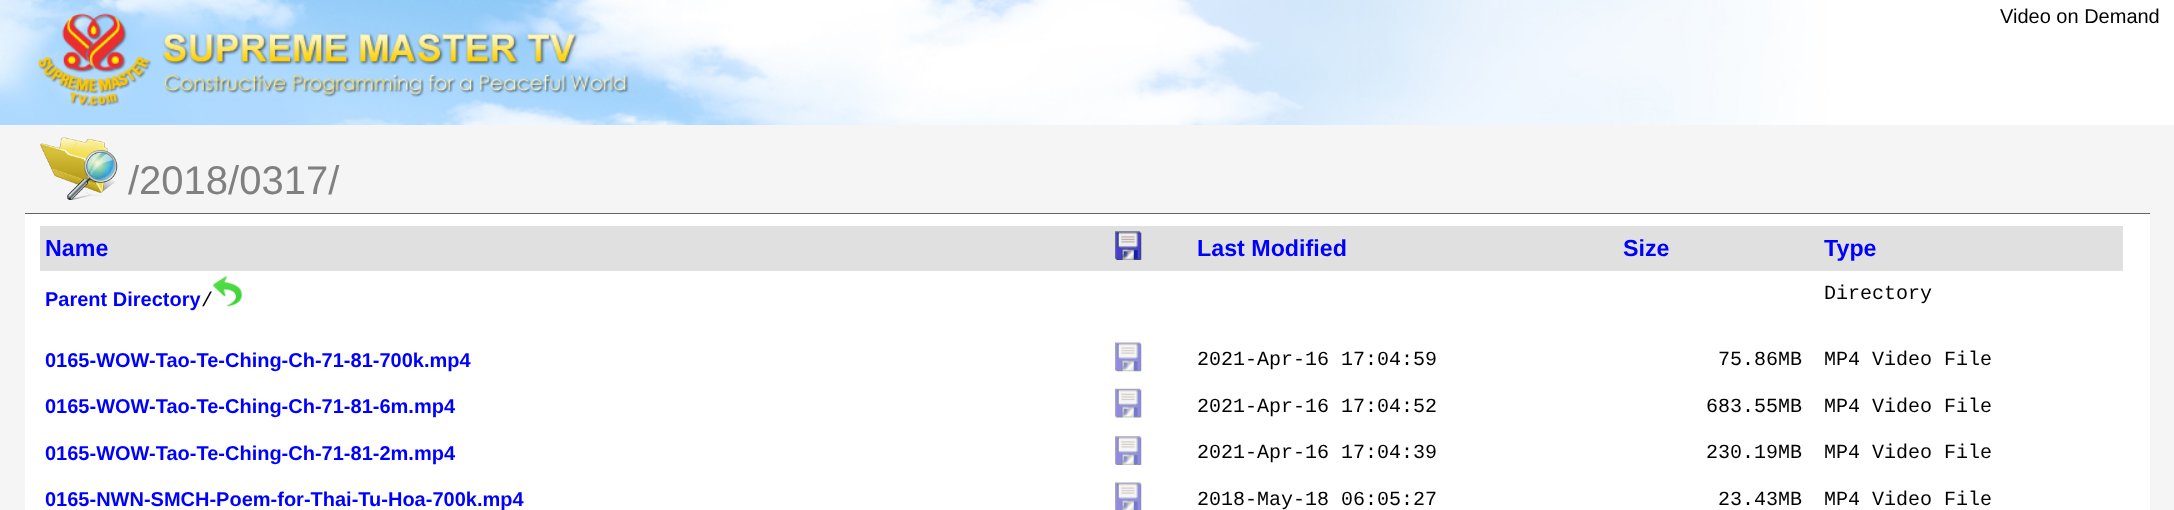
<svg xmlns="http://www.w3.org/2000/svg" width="2174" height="510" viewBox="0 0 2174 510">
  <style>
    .t1 { font: 20px Liberation Sans; fill: #000; }
    .t2 { font: 40px Liberation Sans; fill: #808080; }
    .t3 { font: bold 23.25px Liberation Sans; fill: #00f; }
    .t4 { font: bold 20px Liberation Sans; fill: #00f; }
    .t5 { font: 20px Liberation Mono; fill: #000; }
  </style>
  <rect width="100%" height="100%" fill="#f5f5f5"/>
  <image x="0" y="0" width="2174" height="125" href="images/1.png"/>
  <image x="37" y="13" width="592" height="94" href="images/2.png"/>
  <text x="2000" y="23" class="t1">Video on Demand</text>
  <image x="40" y="137" width="78" height="63" href="images/3.png"/>
  <text x="128" y="194" class="t2">/2018/0317/</text>
  <rect x="25" y="214" width="2125" height="296" fill="#fff"/>
  <rect x="25" y="213" width="2125" height="1" fill="#646464"/>
  <rect x="40" y="226" width="2083" height="45" fill="#e0e0e0"/>
  <text x="45" y="256" class="t3">Name</text>
  <image x="1115" y="231" width="27" height="29" href="images/4.png"/>
  <text x="1197" y="256" class="t3">Last Modified</text>
  <text x="1623" y="256" class="t3">Size</text>
  <text x="1824" y="256" class="t3">Type</text>
  <text x="45" y="306" class="t4">Parent Directory</text>
  <text x="201" y="306" class="t5">/</text>
  <image x="213" y="276" width="30" height="31" href="images/5.png"/>
  <text x="1824" y="299" class="t5">Directory</text>
  <text x="45" y="367" class="t4">0165-WOW-Tao-Te-Ching-Ch-71-81-700k.mp4</text>
  <image x="1115" y="342" width="27" height="30" href="images/6.png"/>
  <text x="1197" y="365" class="t5">2021-Apr-16 17:04:59</text>
  <text x="1718" y="365" class="t5">75.86MB</text>
  <text x="1824" y="365" class="t5">MP4 Video File</text>
  <text x="45" y="413" class="t4">0165-WOW-Tao-Te-Ching-Ch-71-81-6m.mp4</text>
  <image x="1115" y="388" width="27" height="30" href="images/7.png"/>
  <text x="1197" y="412" class="t5">2021-Apr-16 17:04:52</text>
  <text x="1706" y="412" class="t5">683.55MB</text>
  <text x="1824" y="412" class="t5">MP4 Video File</text>
  <text x="45" y="460" class="t4">0165-WOW-Tao-Te-Ching-Ch-71-81-2m.mp4</text>
  <image x="1115" y="436" width="27" height="29" href="images/8.png"/>
  <text x="1197" y="458" class="t5">2021-Apr-16 17:04:39</text>
  <text x="1706" y="458" class="t5">230.19MB</text>
  <text x="1824" y="458" class="t5">MP4 Video File</text>
  <text x="45" y="506" class="t4">0165-NWN-SMCH-Poem-for-Thai-Tu-Hoa-700k.mp4</text>
  <image x="1115" y="482" width="27" height="28" href="images/9.png"/>
  <text x="1197" y="505" class="t5">2018-May-18 06:05:27</text>
  <text x="1718" y="505" class="t5">23.43MB</text>
  <text x="1824" y="505" class="t5">MP4 Video File</text>
</svg>
